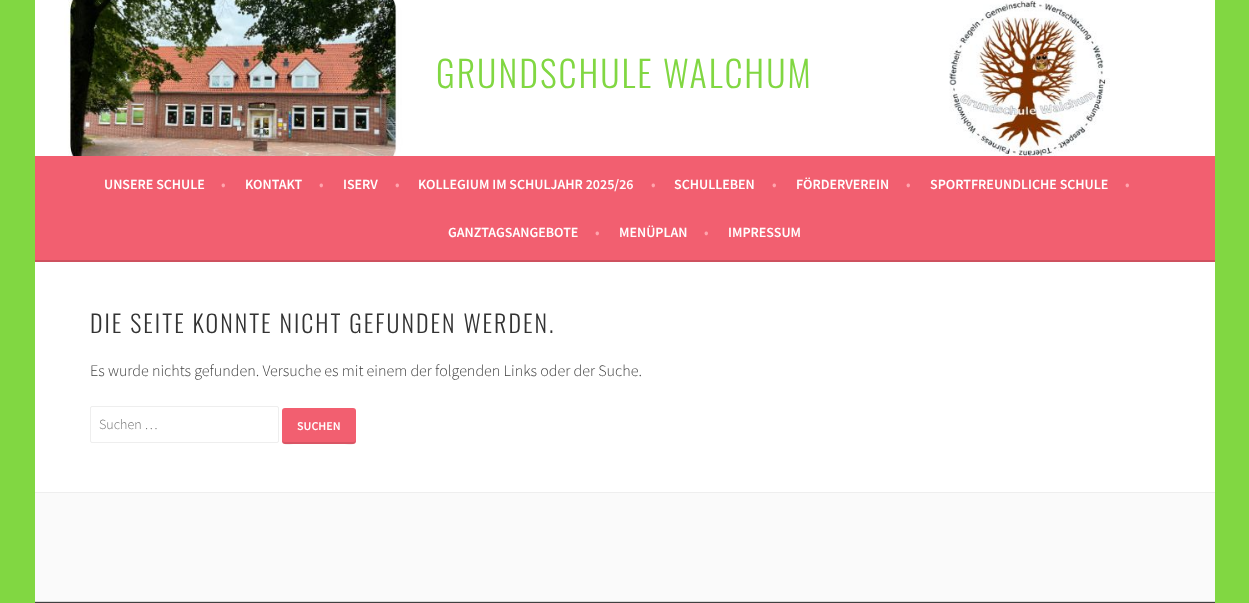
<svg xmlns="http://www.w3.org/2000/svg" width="1249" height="603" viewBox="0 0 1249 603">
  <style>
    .t1 { font: 300 36px Oswald; letter-spacing: 2px; fill: #81d742; }
    .t2 { font: 600 14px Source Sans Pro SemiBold; fill: #fff; }
    .t3 { font: 600 14px Source Sans Pro SemiBold; fill: #ffa4ad; }
    .t4 { font: 300 24px Oswald; letter-spacing: 2px; fill: #333; }
    .t5 { font: 300 16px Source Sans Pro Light; fill: #404040; }
    .t6 { font: 300 14px Source Sans Pro Light; fill: #757575; }
    .t7 { font: 600 12px Source Sans Pro SemiBold; fill: #fff; }
  </style>
  <rect width="100%" height="100%" fill="#81d742"/>
  <rect x="35" y="0" width="1180" height="156" fill="#fff"/>
  <image x="64" y="0" width="1046" height="156" href="images/1.png"/>
  <text x="436" y="88" class="t1">GRUNDSCHULE WALCHUM</text>
  <rect x="35" y="156" width="1180" height="104" fill="#f25f70"/>
  <rect x="35" y="260" width="1180" height="2" fill="#ce515f"/>
  <text x="104" y="189" class="t2">UNSERE SCHULE</text>
  <text x="221" y="189" class="t3">•</text>
  <text x="245" y="189" class="t2">KONTAKT</text>
  <text x="319" y="189" class="t3">•</text>
  <text x="343" y="189" class="t2">ISERV</text>
  <text x="395" y="189" class="t3">•</text>
  <text x="418" y="189" class="t2">KOLLEGIUM IM SCHULJAHR 2025/26</text>
  <text x="651" y="189" class="t3">•</text>
  <text x="674" y="189" class="t2">SCHULLEBEN</text>
  <text x="772" y="189" class="t3">•</text>
  <text x="796" y="189" class="t2">FÖRDERVEREIN</text>
  <text x="906" y="189" class="t3">•</text>
  <text x="930" y="189" class="t2">SPORTFREUNDLICHE SCHULE</text>
  <text x="1125" y="189" class="t3">•</text>
  <text x="448" y="237" class="t2">GANZTAGSANGEBOTE</text>
  <text x="595" y="237" class="t3">•</text>
  <text x="619" y="237" class="t2">MENÜPLAN</text>
  <text x="704" y="237" class="t3">•</text>
  <text x="728" y="237" class="t2">IMPRESSUM</text>
  <rect x="35" y="262" width="1180" height="230" fill="#fff"/>
  <text x="90" y="333" class="t4">DIE SEITE KONNTE NICHT GEFUNDEN WERDEN.</text>
  <text x="90" y="376" class="t5">Es wurde nichts gefunden. Versuche es mit einem der folgenden Links oder der Suche.</text>
  <rect x="90.5" y="406.5" width="188" height="36" rx="1.5" fill="none" stroke="#eee"/>
  <text x="99" y="429" class="t6">Suchen …</text>
  <rect x="282" y="408" width="74" height="36" rx="3" fill="#f25f70"/>
  <path d="M282 439C282 447 289 444 296 444H342C349 444 356 447 356 439C356 441 355 442 353 442H285C283 442 282 441 282 439Z" fill="#0000001a"/>
  <text x="297" y="430" class="t7">SUCHEN</text>
  <rect x="35" y="493" width="1180" height="108" fill="#fafafa"/>
  <rect x="35" y="492" width="1180" height="1" fill="#eee"/>
  <rect x="35" y="602" width="1180" height="1" fill="#404040"/>
  <rect x="35" y="601" width="1180" height="1" fill="#d9d9d9"/>
</svg>
